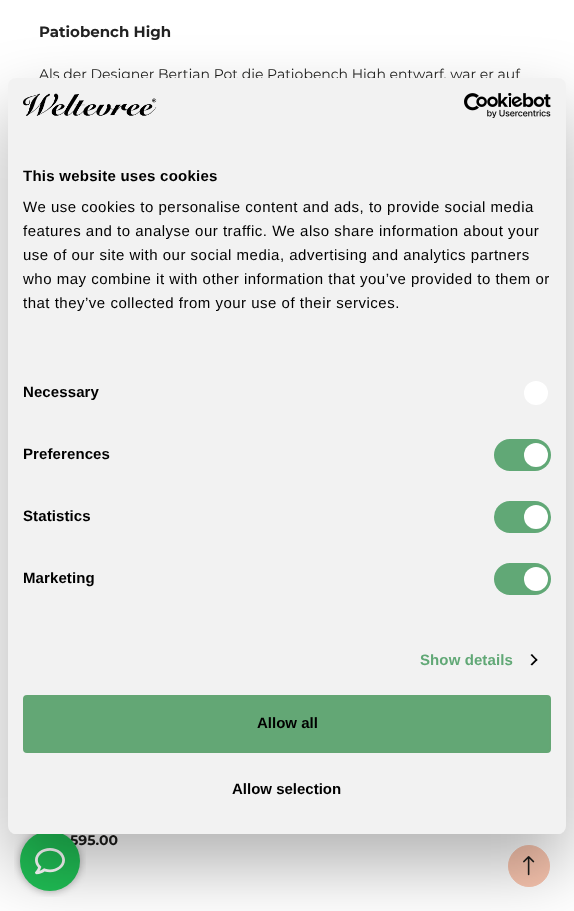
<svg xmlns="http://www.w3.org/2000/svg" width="574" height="911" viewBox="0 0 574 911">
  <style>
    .t1 { font: bold 15px Montserrat; fill: #222; }
    .t2 { font: 14px Montserrat; fill: #1d1d1b; }
    .t3 { font: bold 14px Montserrat; fill: #1d1d1b; }
    .t4 { font: bold 15px Liberation Sans; letter-spacing: 0.25px; fill: #000; }
    .t5 { font: 15px Liberation Sans; letter-spacing: 0.5px; fill: #000; }
    .t6 { font: bold 15px Liberation Sans; letter-spacing: 0.1px; fill: #000; }
    .t7 { font: bold 15px Liberation Sans; letter-spacing: 0.1px; fill: #61a876; }
    .t8 { font: bold 15px Liberation Sans; fill: #000; }
  </style>
  <defs>
    <clipPath id="clip1"><rect x="8" y="78" width="558" height="756" rx="8"/></clipPath>
  </defs>
  <rect width="100%" height="100%" fill="#fff"/>
  <text x="39" y="37" class="t1">Patiobench High</text>
  <text x="39" y="79" class="t2">Als der Designer Bertjan Pot die Patiobench High entwarf, war er auf</text>
  <text x="70" y="845" class="t3">595.00</text>
  <image x="14" y="834" width="72" height="63" href="images/3.png"/>
  <circle cx="529" cy="866" r="20.5" fill="#f9c5af" stroke="#f9c5af"/>
  <image x="523" y="856" width="12" height="20" href="images/4.png"/>
  <rect x="8" y="110" width="558" height="756" rx="8" fill="#0000004d" filter="blur(34px)"/>
  <rect x="8" y="78" width="558" height="756" rx="8" fill="#f2f2f2"/>
  <image x="23" y="93" width="134" height="23" href="images/1.png"/>
  <image x="464" y="93" width="87" height="25" href="images/2.png"/>
  <text x="23" y="181" class="t4">This website uses cookies</text>
  <text x="23" y="212" class="t5">We use cookies to personalise content and ads, to provide social media</text>
  <text x="23" y="236" class="t5">features and to analyse our traffic. We also share information about your</text>
  <text x="23" y="260" class="t5">use of our site with our social media, advertising and analytics partners</text>
  <text x="23" y="284" class="t5">who may combine it with other information that you’ve provided to them or</text>
  <text x="23" y="308" class="t5">that they’ve collected from your use of their services.</text>
  <text x="23" y="397" class="t6">Necessary</text>
  <circle cx="536" cy="393" r="12" fill="#fff"/>
  <text x="23" y="459" class="t6">Preferences</text>
  <rect x="494" y="439" width="57" height="32" rx="16" fill="#61a876"/>
  <circle cx="536" cy="455" r="12" fill="#fff"/>
  <text x="23" y="521" class="t6">Statistics</text>
  <rect x="494" y="501" width="57" height="32" rx="16" fill="#61a876"/>
  <circle cx="536" cy="517" r="12" fill="#fff"/>
  <text x="23" y="583" class="t6">Marketing</text>
  <rect x="494" y="563" width="57" height="32" rx="16" fill="#61a876"/>
  <circle cx="536" cy="579" r="12" fill="#fff"/>
  <text x="420" y="665" class="t7">Show details</text>
  <path d="M532 654L537.5 660L536.5 661L530.5 655Z" fill="#000"/>
  <path d="M536.5 658.5L537.5 660L532 665.5L530.5 664.5Z" fill="#000"/>
  <g clip-path="url(#clip1)">
    <rect x="8" y="833" width="558" height="1" fill="#f2f2f2"/>
  </g>
  <rect x="24" y="696" width="526" height="56" rx="3" fill="#63a775" stroke="#64a674" stroke-width="2"/>
  <text x="257" y="728" class="t8">Allow all</text>
  <text x="232" y="794" class="t8">Allow selection</text>
</svg>
